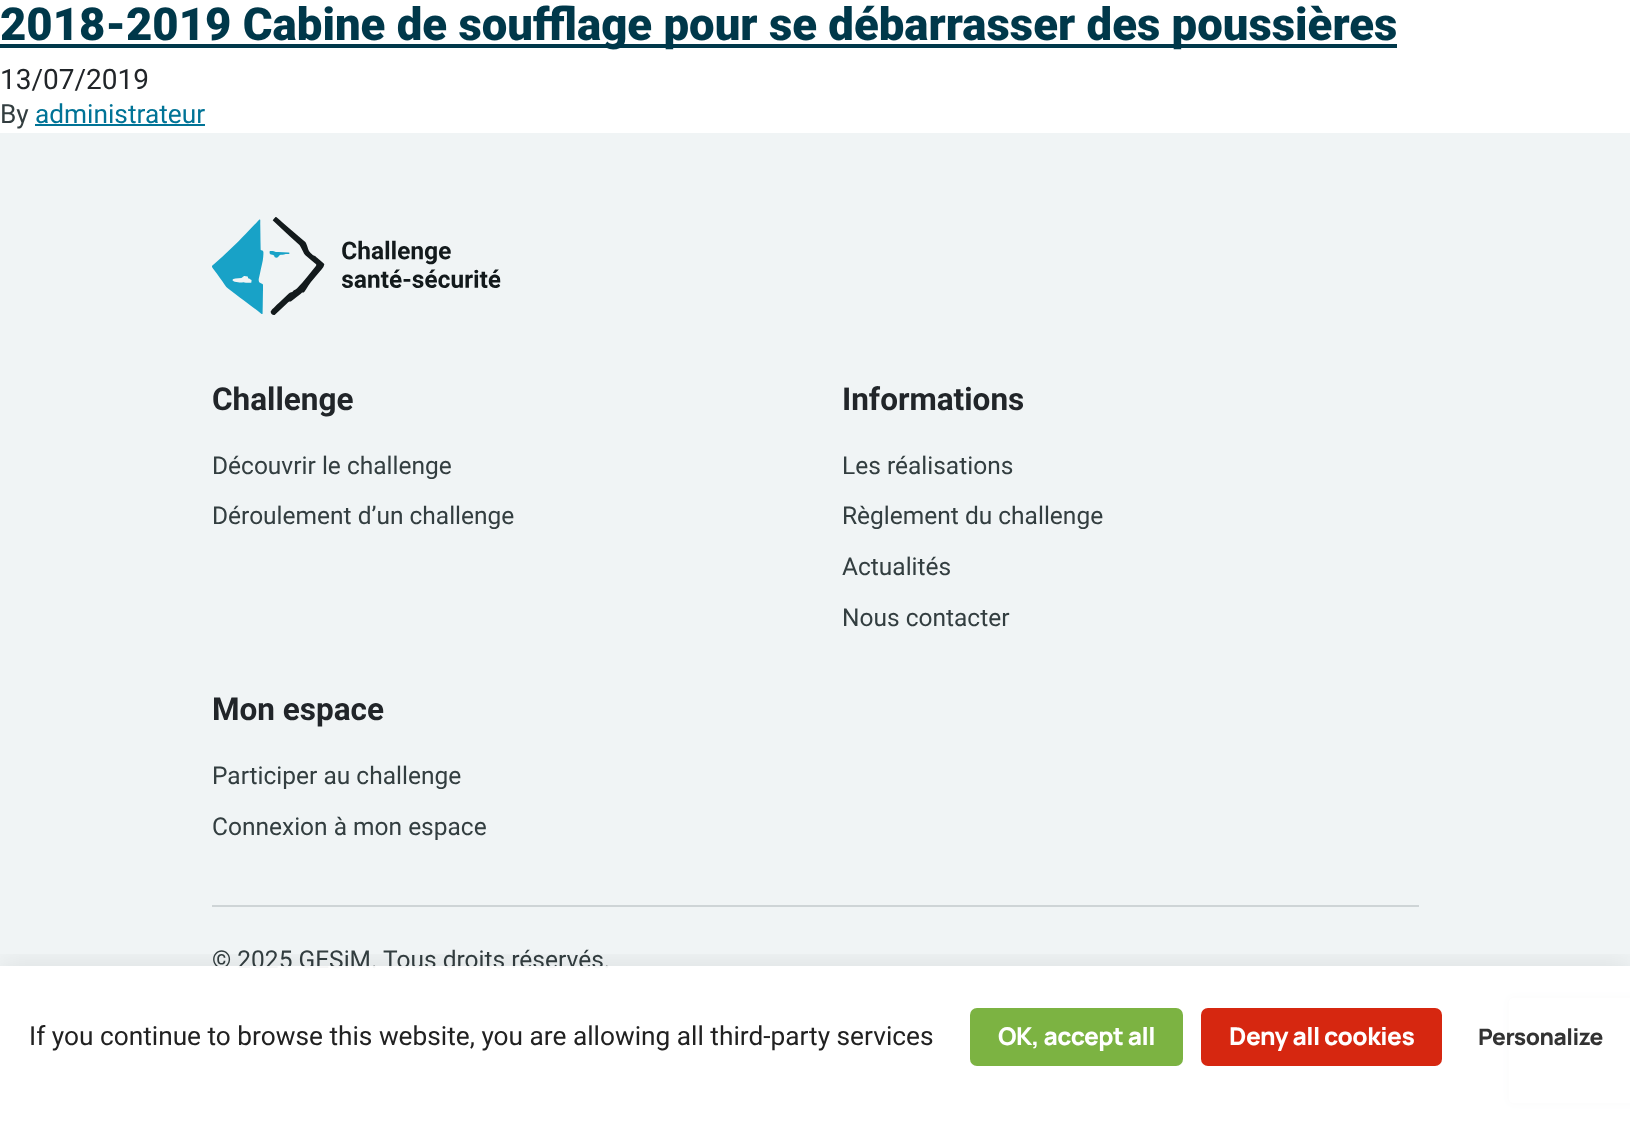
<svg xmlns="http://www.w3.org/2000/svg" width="1630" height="1126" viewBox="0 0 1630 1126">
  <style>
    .t1 { font: 900 45.5px Roboto; fill: #00384a; }
    .t2 { font: 28px Roboto; fill: #212529; }
    .t3 { font: 26.25px Roboto; fill: #333e40; }
    .t4 { font: 26.25px Roboto; fill: #007396; }
    .t5 { font: bold 31.5px Roboto; fill: #212529; }
    .t6 { font: 24.5px Roboto; fill: #333e40; }
    .t7 { font: 26.25px Roboto; fill: #212121; }
    .t8 { font: 800 24.5px Manrope; letter-spacing: -0.5px; fill: #fff; }
    .t9 { font: 800 22.75px Manrope; letter-spacing: -0.5px; fill: #333; }
  </style>
  <defs>
    <clipPath id="clip1"><path d="M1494 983H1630V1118H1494ZM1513 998H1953C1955 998 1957 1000 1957 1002V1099C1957 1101 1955 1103 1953 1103H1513C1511 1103 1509 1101 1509 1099V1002C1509 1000 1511 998 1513 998Z" clip-rule="evenodd"/></clipPath>
    <clipPath id="clip2"><rect x="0" y="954" width="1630" height="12"/></clipPath>
  </defs>
  <rect width="100%" height="100%" fill="#fff"/>
  <rect x="0" y="44" width="1397" height="4" fill="#00384a"/>
  <text x="0" y="40" class="t1">2018-2019 Cabine de soufflage pour se débarrasser des poussières</text>
  <text x="0" y="89" class="t2">13/07/2019</text>
  <text x="0" y="123" class="t3">By</text>
  <text x="35" y="123" class="t4">administrateur</text>
  <rect x="35" y="124" width="170" height="2" fill="#007396"/>
  <rect x="0" y="133" width="1630" height="993" fill="#f0f4f5"/>
  <image x="212" y="217" width="289" height="98" href="images/1.png"/>
  <text x="212" y="410" class="t5">Challenge</text>
  <text x="212" y="474" class="t6">Découvrir le challenge</text>
  <text x="212" y="524" class="t6">Déroulement d’un challenge</text>
  <text x="842" y="410" class="t5">Informations</text>
  <text x="842" y="474" class="t6">Les réalisations</text>
  <text x="842" y="524" class="t6">Règlement du challenge</text>
  <text x="842" y="575" class="t6">Actualités</text>
  <text x="842" y="626" class="t6">Nous contacter</text>
  <text x="212" y="720" class="t5">Mon espace</text>
  <text x="212" y="784" class="t6">Participer au challenge</text>
  <text x="212" y="835" class="t6">Connexion à mon espace</text>
  <rect x="212" y="905" width="1207" height="2" fill="#ced4d6"/>
  <text x="212" y="968" class="t6">© 2025 GESiM. Tous droits réservés.</text>
  <g clip-path="url(#clip1)">
    <rect x="1509" y="998" width="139" height="105" rx="4" fill="#808080" filter="blur(4.5px)"/>
  </g>
  <g clip-path="url(#clip2)">
    <rect x="0" y="963" width="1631" height="161" fill="#00000014" filter="blur(14px)"/>
  </g>
  <rect x="0" y="966" width="1630" height="160" fill="#fffffff5"/>
  <text x="29" y="1045" class="t7">If you continue to browse this website, you are allowing all third-party services</text>
  <rect x="970" y="1008" width="213" height="58" rx="7" fill="#7cb342"/>
  <text x="998" y="1045" class="t8">OK, accept all</text>
  <rect x="1201" y="1008" width="241" height="58" rx="7" fill="#d62710"/>
  <text x="1229" y="1045" class="t8">Deny all cookies</text>
  <text x="1478" y="1045" class="t9">Personalize</text>
</svg>
